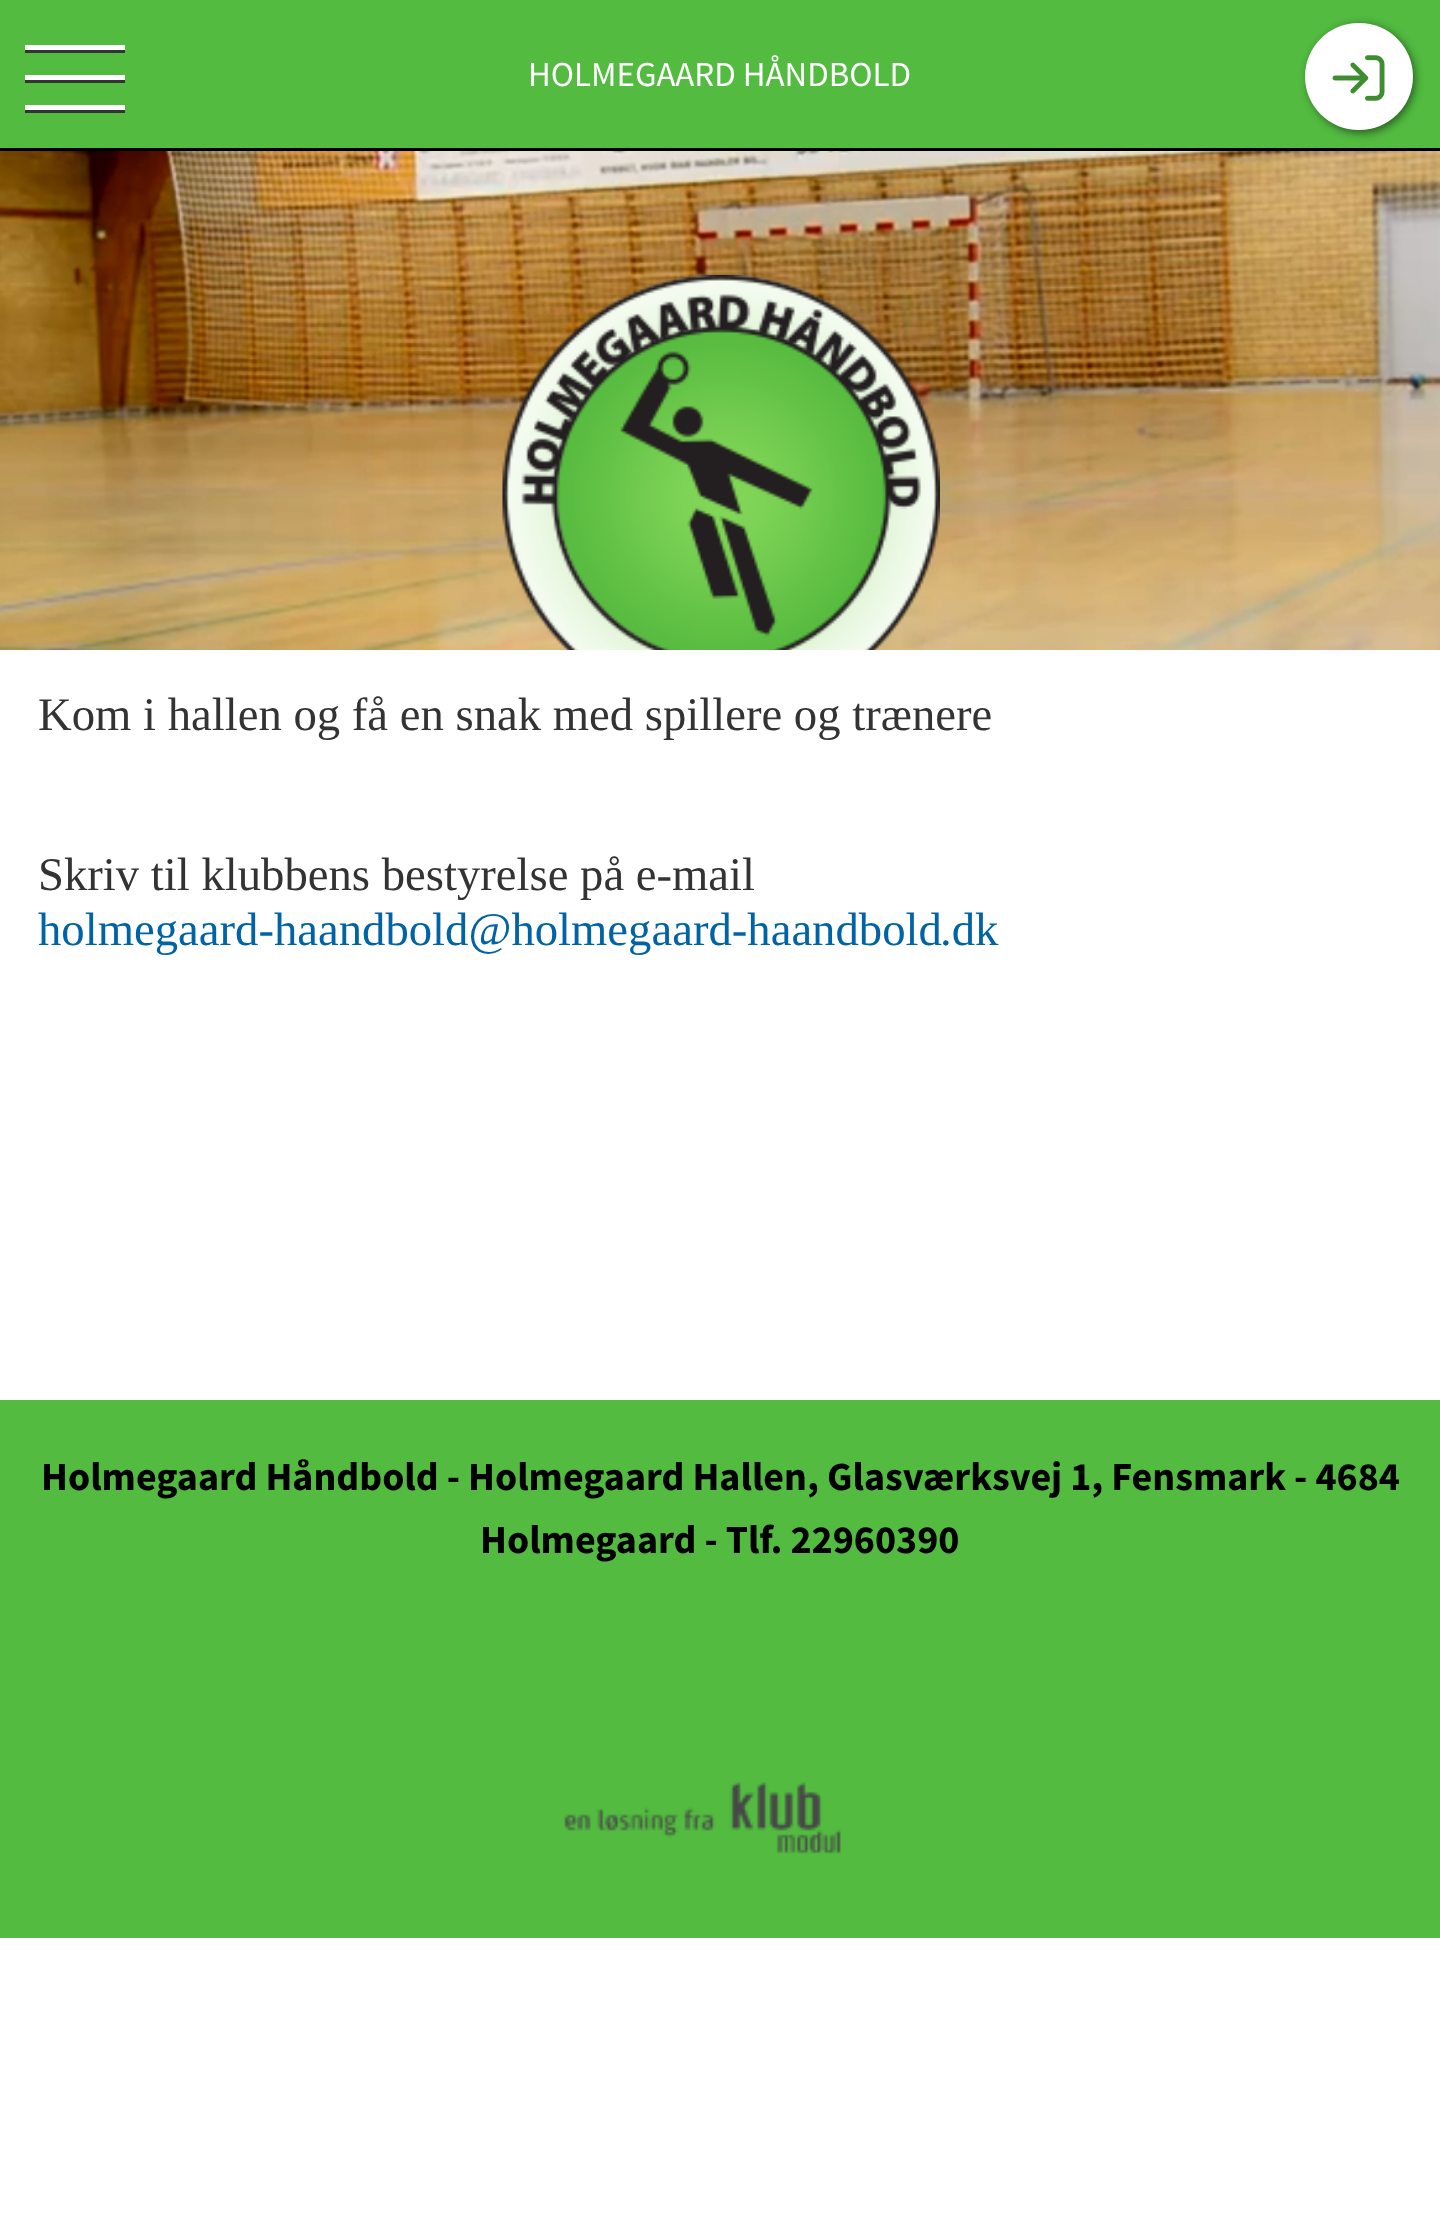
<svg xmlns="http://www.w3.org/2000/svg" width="1440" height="2213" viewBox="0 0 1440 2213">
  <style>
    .t1 { font: 35px Source Sans Pro; fill: #fff; }
    .t2 { font: 46.7px Liberation Serif; fill: #333; }
    .t3 { font: 46.7px Liberation Serif; fill: #0063a6; }
    .t4 { font: bold 40px Source Sans Pro; fill: #000; }
  </style>
  <rect width="100%" height="100%" fill="#fff"/>
  <rect x="0" y="0" width="1440" height="148" fill="#52bb40"/>
  <rect x="0" y="148" width="1440" height="3" fill="#000"/>
  <rect x="25" y="50" width="100" height="3" fill="#333"/>
  <rect x="25" y="45" width="100" height="5" fill="#fff"/>
  <rect x="25" y="80" width="100" height="3" fill="#333"/>
  <rect x="25" y="75" width="100" height="5" fill="#fff"/>
  <rect x="25" y="110" width="100" height="3" fill="#333"/>
  <rect x="25" y="105" width="100" height="5" fill="#fff"/>
  <text x="528" y="86" class="t1">HOLMEGAARD HÅNDBOLD</text>
  <rect x="1308" y="25" width="107" height="108" rx="53.5" fill="#00000080" filter="blur(4px)"/>
  <rect x="1305" y="23" width="108" height="107" rx="53.5" fill="#fff"/>
  <image x="1332" y="55" width="53" height="46" href="images/1.png"/>
  <image x="0" y="151" width="1440" height="499" href="images/2.png"/>
  <image x="502" y="275" width="438" height="375" href="images/3.png"/>
  <text x="38" y="730" class="t2">Kom i hallen og få en snak med spillere og trænere</text>
  <text x="38" y="890" class="t2">Skriv til klubbens bestyrelse på e-mail</text>
  <text x="38" y="945" class="t3">holmegaard-haandbold@holmegaard-haandbold</text>
  <text x="940" y="945" class="t3">.dk</text>
  <rect x="0" y="1400" width="1440" height="538" fill="#52bb40"/>
  <text x="41" y="1490" class="t4">Holmegaard Håndbold - Holmegaard Hallen, Glasværksvej 1, Fensmark - 4684</text>
  <text x="480" y="1553" class="t4">Holmegaard - Tlf. 22960390</text>
  <image x="564" y="1782" width="277" height="72" href="images/4.png"/>
</svg>
